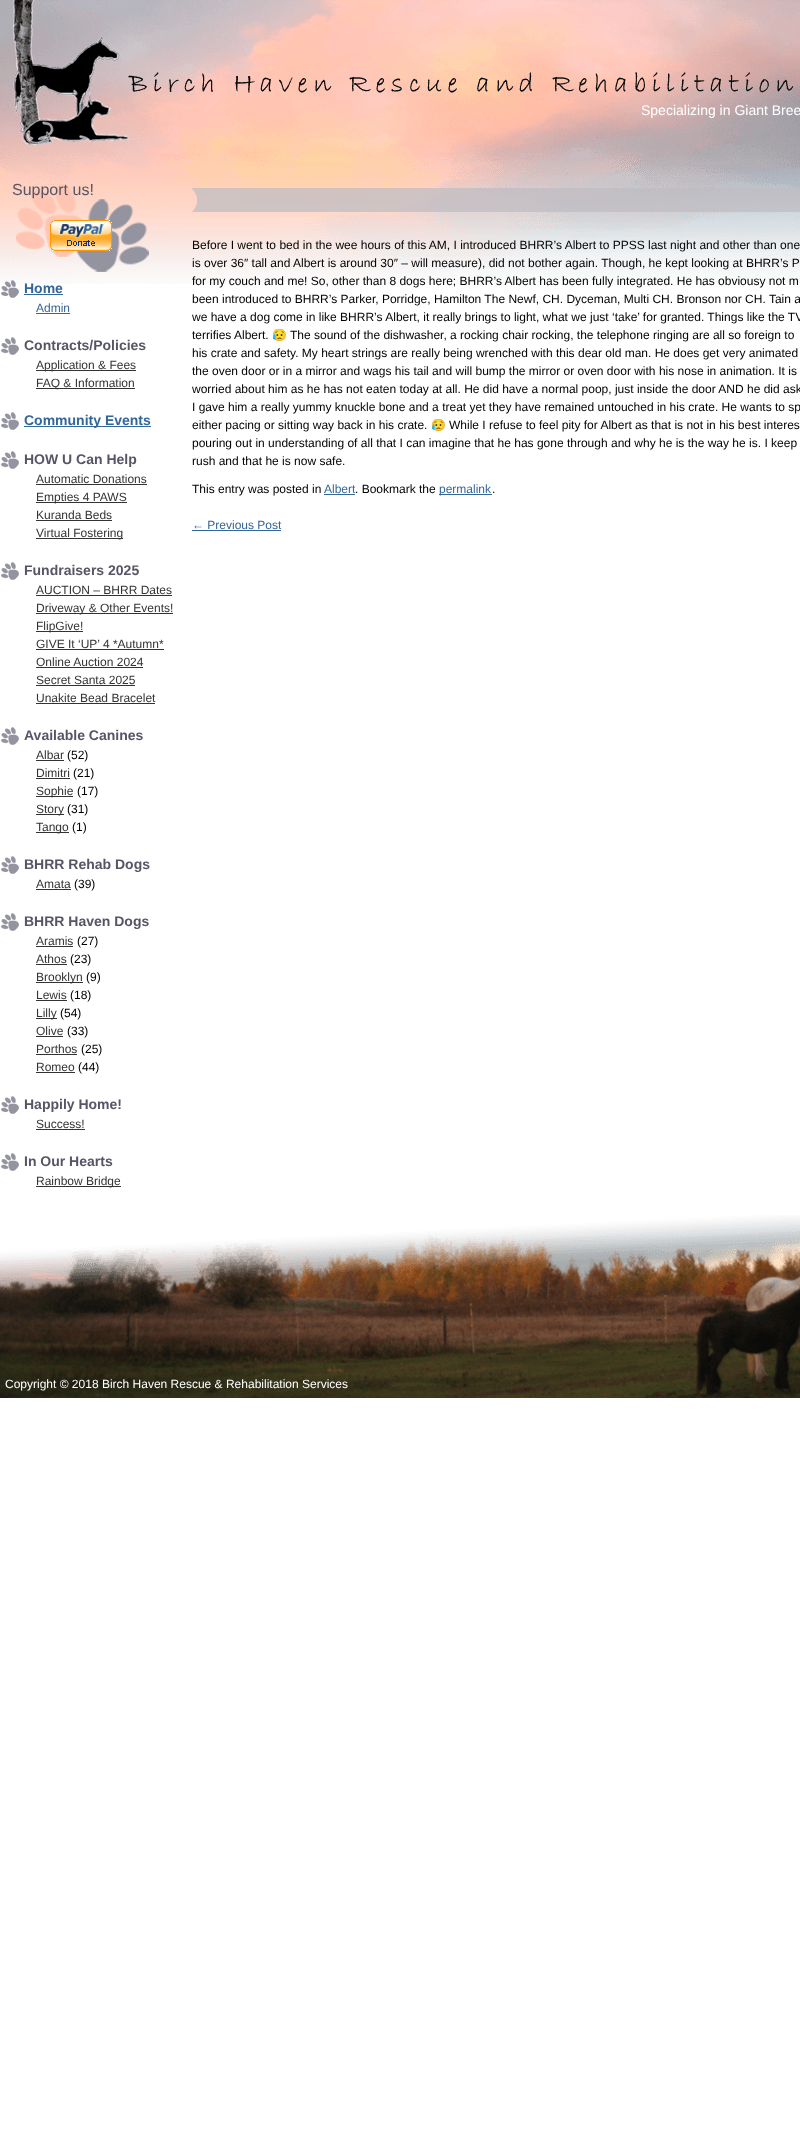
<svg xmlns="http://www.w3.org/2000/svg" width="800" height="2152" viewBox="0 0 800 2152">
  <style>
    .t1 { font: 14px Liberation Sans; fill: #fff; }
    .t2 { font: 16px Liberation Sans; fill: #556; }
    .t3 { font: bold 14px Liberation Sans; fill: #369; }
    .t4 { font: 12px Liberation Sans; fill: #369; }
    .t5 { font: bold 14px Liberation Sans; fill: #556; }
    .t6 { font: 12px Liberation Sans; fill: #333; }
    .t7 { font: 12px Liberation Sans; fill: #000; }
    .t8 { font: 12px Noto Color Emoji; fill: #000; }
    .t9 { font: 12px Liberation Sans; fill: #fff; }
  </style>
  <rect width="100%" height="100%" fill="#fff"/>
  <image x="0" y="0" width="800" height="284" href="images/1.png"/>
  <text x="641" y="115" class="t1">Specializing in Giant Bree</text>
  <image x="16" y="184" width="133" height="88" href="images/2.png"/>
  <text x="12" y="195" class="t2">Support us!</text>
  <image x="50" y="220" width="62" height="31" href="images/3.png"/>
  <image x="1" y="280" width="18" height="18" href="images/4.png"/>
  <text x="24" y="293" class="t3">Home</text>
  <rect x="24" y="294" width="39" height="1" fill="#369"/>
  <text x="36" y="312" class="t4">Admin</text>
  <rect x="36" y="313" width="34" height="1" fill="#369"/>
  <image x="1" y="337" width="18" height="18" href="images/5.png"/>
  <text x="24" y="350" class="t5">Contracts/Policies</text>
  <rect x="36" y="370" width="100" height="1" fill="#333"/>
  <text x="36" y="369" class="t6">Application &amp; Fees</text>
  <rect x="36" y="388" width="99" height="1" fill="#333"/>
  <text x="36" y="387" class="t6">FAQ &amp; Information</text>
  <image x="1" y="412" width="18" height="18" href="images/5.png"/>
  <rect x="24" y="426" width="127" height="1" fill="#369"/>
  <text x="24" y="425" class="t3">Community Events</text>
  <image x="1" y="451" width="18" height="18" href="images/5.png"/>
  <text x="24" y="464" class="t5">HOW U Can Help</text>
  <text x="36" y="483" class="t6">Automatic Donations</text>
  <rect x="36" y="484" width="111" height="1" fill="#333"/>
  <rect x="36" y="502" width="91" height="1" fill="#333"/>
  <text x="36" y="501" class="t6">Empties 4 PAWS</text>
  <text x="36" y="519" class="t6">Kuranda Beds</text>
  <rect x="36" y="520" width="76" height="1" fill="#333"/>
  <rect x="36" y="538" width="87" height="1" fill="#333"/>
  <text x="36" y="537" class="t6">Virtual Fostering</text>
  <image x="1" y="562" width="18" height="18" href="images/5.png"/>
  <text x="24" y="575" class="t5">Fundraisers 2025</text>
  <text x="36" y="594" class="t6">AUCTION – BHRR Dates</text>
  <rect x="36" y="595" width="136" height="1" fill="#333"/>
  <rect x="36" y="613" width="137" height="1" fill="#333"/>
  <text x="36" y="612" class="t6">Driveway &amp; Other Events!</text>
  <rect x="36" y="631" width="47" height="1" fill="#333"/>
  <text x="36" y="630" class="t6">FlipGive!</text>
  <text x="36" y="648" class="t6">GIVE It ‘UP’ 4 *Autumn*</text>
  <rect x="36" y="649" width="128" height="1" fill="#333"/>
  <text x="36" y="666" class="t6">Online Auction 2024</text>
  <rect x="36" y="667" width="107" height="1" fill="#333"/>
  <text x="36" y="684" class="t6">Secret Santa 2025</text>
  <rect x="36" y="685" width="99" height="1" fill="#333"/>
  <text x="36" y="702" class="t6">Unakite Bead Bracelet</text>
  <rect x="36" y="703" width="119" height="1" fill="#333"/>
  <image x="1" y="727" width="18" height="18" href="images/5.png"/>
  <text x="24" y="740" class="t5">Available Canines</text>
  <text x="36" y="759" class="t6">Albar</text>
  <rect x="36" y="760" width="28" height="1" fill="#333"/>
  <text x="67" y="759" class="t7">(52)</text>
  <text x="36" y="777" class="t6">Dimitri</text>
  <rect x="36" y="778" width="34" height="1" fill="#333"/>
  <text x="73" y="777" class="t7">(21)</text>
  <rect x="36" y="796" width="37" height="1" fill="#333"/>
  <text x="36" y="795" class="t6">Sophie</text>
  <text x="77" y="795" class="t7">(17)</text>
  <rect x="36" y="814" width="28" height="1" fill="#333"/>
  <text x="36" y="813" class="t6">Story</text>
  <text x="67" y="813" class="t7">(31)</text>
  <rect x="36" y="832" width="33" height="1" fill="#333"/>
  <text x="36" y="831" class="t6">Tango</text>
  <text x="72" y="831" class="t7">(1)</text>
  <image x="1" y="856" width="18" height="18" href="images/5.png"/>
  <text x="24" y="869" class="t5">BHRR Rehab Dogs</text>
  <text x="36" y="888" class="t6">Amata</text>
  <rect x="36" y="889" width="35" height="1" fill="#333"/>
  <text x="74" y="888" class="t7">(39)</text>
  <image x="1" y="913" width="18" height="18" href="images/5.png"/>
  <text x="24" y="926" class="t5">BHRR Haven Dogs</text>
  <text x="36" y="945" class="t6">Aramis</text>
  <rect x="36" y="946" width="37" height="1" fill="#333"/>
  <text x="77" y="945" class="t7">(27)</text>
  <text x="36" y="963" class="t6">Athos</text>
  <rect x="36" y="964" width="31" height="1" fill="#333"/>
  <text x="70" y="963" class="t7">(23)</text>
  <rect x="36" y="982" width="47" height="1" fill="#333"/>
  <text x="36" y="981" class="t6">Brooklyn</text>
  <text x="86" y="981" class="t7">(9)</text>
  <text x="36" y="999" class="t6">Lewis</text>
  <rect x="36" y="1000" width="31" height="1" fill="#333"/>
  <text x="70" y="999" class="t7">(18)</text>
  <rect x="36" y="1018" width="21" height="1" fill="#333"/>
  <text x="36" y="1017" class="t6">Lilly</text>
  <text x="60" y="1017" class="t7">(54)</text>
  <text x="36" y="1035" class="t6">Olive</text>
  <rect x="36" y="1036" width="27" height="1" fill="#333"/>
  <text x="67" y="1035" class="t7">(33)</text>
  <text x="36" y="1053" class="t6">Porthos</text>
  <rect x="36" y="1054" width="41" height="1" fill="#333"/>
  <text x="81" y="1053" class="t7">(25)</text>
  <text x="36" y="1071" class="t6">Romeo</text>
  <rect x="36" y="1072" width="39" height="1" fill="#333"/>
  <text x="78" y="1071" class="t7">(44)</text>
  <image x="1" y="1096" width="18" height="18" href="images/5.png"/>
  <text x="24" y="1109" class="t5">Happily Home!</text>
  <text x="36" y="1128" class="t6">Success!</text>
  <rect x="36" y="1129" width="49" height="1" fill="#333"/>
  <image x="1" y="1153" width="18" height="18" href="images/5.png"/>
  <text x="24" y="1166" class="t5">In Our Hearts</text>
  <rect x="36" y="1186" width="85" height="1" fill="#333"/>
  <text x="36" y="1185" class="t6">Rainbow Bridge</text>
  <image x="192" y="188" width="608" height="24" href="images/6.png"/>
  <text x="192" y="249" class="t7">Before I went to bed in the wee hours of this AM, I introduced BHRR’s Albert to PPSS last night and other than one</text>
  <text x="192" y="267" class="t7">is over 36″ tall and Albert is around 30″ – will measure), did not bother again. Though, he kept looking at BHRR’s P</text>
  <text x="192" y="285" class="t7">for my couch and me! So, other than 8 dogs here; BHRR’s Albert has been fully integrated. He has obviousy not m</text>
  <text x="192" y="303" class="t7">been introduced to BHRR’s Parker, Porridge, Hamilton The Newf, CH. Dyceman, Multi CH. Bronson nor CH. Tain a</text>
  <text x="192" y="321" class="t7">we have a dog come in like BHRR’s Albert, it really brings to light, what we just ‘take’ for granted. Things like the TV</text>
  <text x="192" y="339" class="t7">terrifies Albert.</text>
  <text x="272" y="339" class="t8">😥</text>
  <text x="290" y="339" class="t7">The sound of the dishwasher, a rocking chair rocking, the telephone ringing are all so foreign to</text>
  <text x="192" y="357" class="t7">his crate and safety. My heart strings are really being wrenched with this dear old man. He does get very animated</text>
  <text x="192" y="375" class="t7">the oven door or in a mirror and wags his tail and will bump the mirror or oven door with his nose in animation. It is</text>
  <text x="192" y="393" class="t7">worried about him as he has not eaten today at all. He did have a normal poop, just inside the door AND he did ask</text>
  <text x="192" y="411" class="t7">I gave him a really yummy knuckle bone and a treat yet they have remained untouched in his crate. He wants to sp</text>
  <text x="192" y="429" class="t7">either pacing or sitting way back in his crate.</text>
  <text x="431" y="429" class="t8">😥</text>
  <text x="449" y="429" class="t7">While I refuse to feel pity for Albert as that is not in his best interes</text>
  <text x="192" y="447" class="t7">pouring out in understanding of all that I can imagine that he has gone through and why he is the way he is. I keep</text>
  <text x="192" y="465" class="t7">rush and that he is now safe.</text>
  <text x="192" y="493" class="t7">This entry was posted in</text>
  <text x="324" y="493" class="t4">Albert</text>
  <rect x="324" y="494" width="31" height="1" fill="#369"/>
  <text x="355" y="493" class="t7">. Bookmark the</text>
  <rect x="439" y="494" width="53" height="1" fill="#369"/>
  <text x="439" y="493" class="t4">permalink</text>
  <text x="492" y="493" class="t7">.</text>
  <text x="192" y="529" class="t4">← Previous Post</text>
  <rect x="192" y="530" width="89" height="1" fill="#369"/>
  <image x="0" y="1215" width="800" height="183" href="images/7.png"/>
  <text x="5" y="1388" class="t9">Copyright © 2018 Birch Haven Rescue &amp; Rehabilitation Services</text>
</svg>
